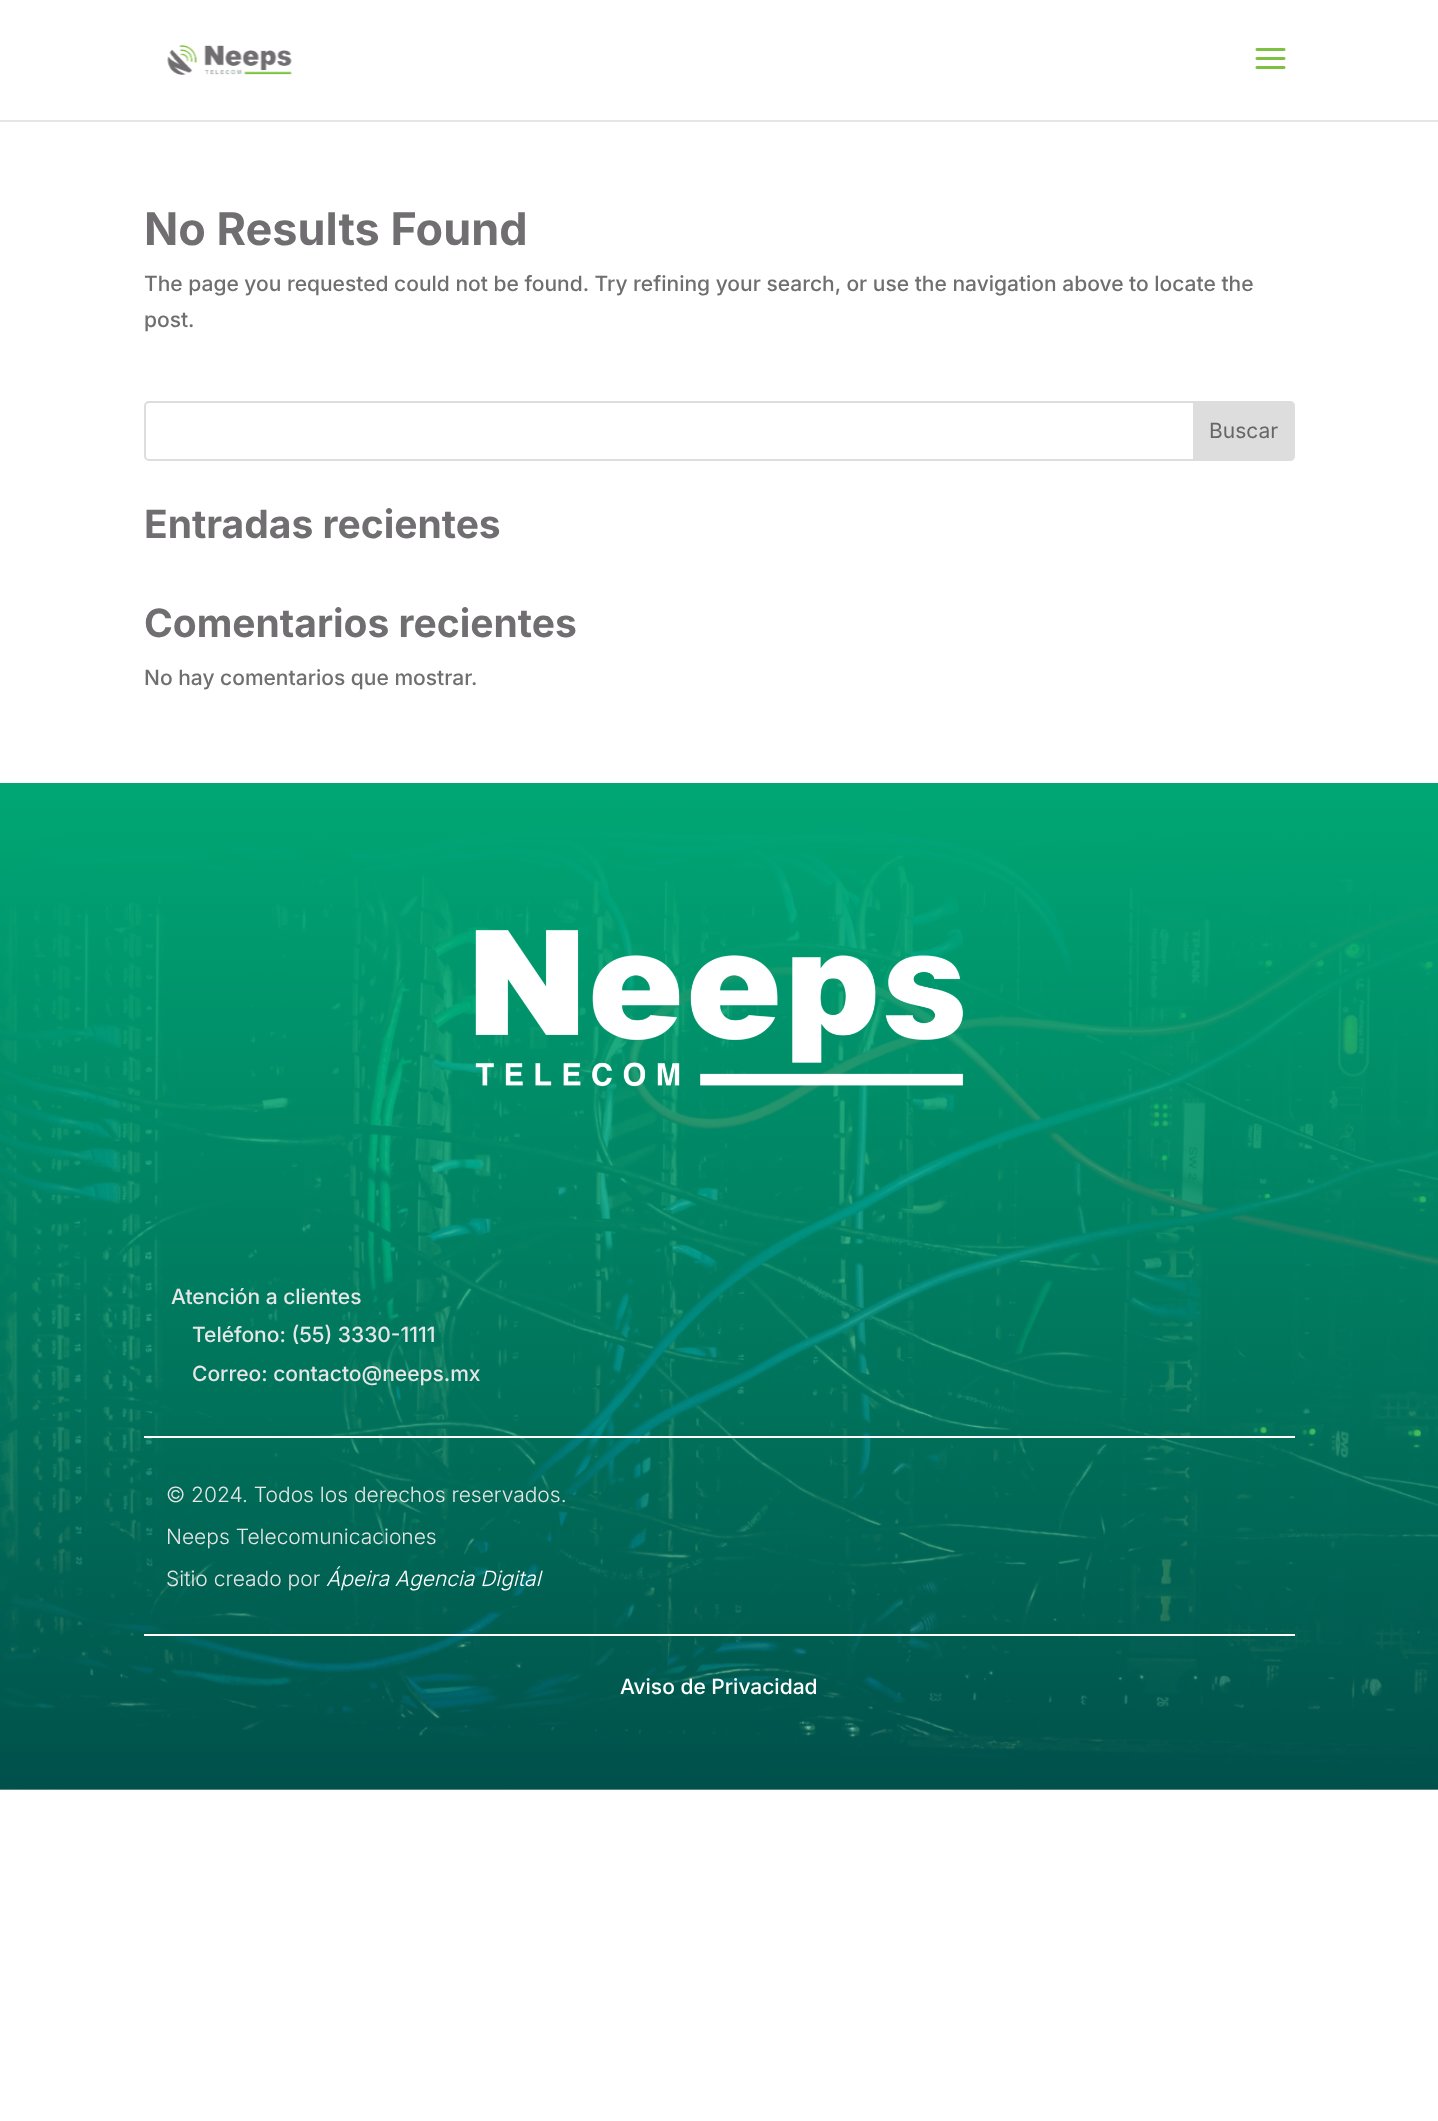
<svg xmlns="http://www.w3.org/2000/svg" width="1438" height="2121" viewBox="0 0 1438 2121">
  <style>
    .t1 { font: bold 45px Inter; fill: #706e70; }
    .t2 { font: 500 21px Inter; fill: #706e70; }
    .t3 { font: 21px Inter; fill: #666; }
    .t4 { font: bold 39px Inter; fill: #706e70; }
    .t5 { font: 500 21px Inter; fill: #e6e6e6; }
    .t6 { font: 300 21px Inter; fill: #e6e6e6; }
    .t7 { font: italic 300 21px Inter; fill: #fff; }
    .t8 { font: 500 21px Inter; fill: #fff; }
  </style>
  <rect width="100%" height="100%" fill="#fff"/>
  <path d="M0 120V122H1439V2H1438V120Z" fill="#e6e6e6"/>
  <image x="167" y="45" width="125" height="30" href="images/1.png"/>
  <image x="1255" y="48" width="31" height="21" href="images/2.png"/>
  <text x="144" y="245" class="t1">No Results Found</text>
  <text x="144" y="291" class="t2">The page you requested could not be found. Try refining your search, or use the navigation above to locate the</text>
  <text x="144" y="327" class="t2">post.</text>
  <rect x="145" y="402" width="1149" height="58" rx="4" fill="none" stroke="#ddd" stroke-width="2"/>
  <path d="M1194 402H1290C1292 402 1294 404 1294 406V456C1294 458 1292 460 1290 460H1194Z" fill="#ddd" stroke="#ddd" stroke-width="2"/>
  <text x="1209" y="438" class="t3">Buscar</text>
  <text x="144" y="538" class="t4">Entradas recientes</text>
  <text x="144" y="637" class="t4">Comentarios recientes</text>
  <text x="144" y="685" class="t2">No hay comentarios que mostrar.</text>
  <image x="0" y="783" width="1438" height="1007" href="images/3.png"/>
  <image x="475" y="929" width="489" height="158" href="images/4.png"/>
  <text x="171" y="1304" class="t5">Atención a clientes</text>
  <text x="192" y="1342" class="t5">Teléfono: (55) 3330-1111</text>
  <text x="192" y="1381" class="t5">Correo: contacto@neeps.mx</text>
  <rect x="144" y="1436" width="1151" height="2" fill="#fff"/>
  <text x="166" y="1502" class="t6">© 2024. Todos los derechos reservados.</text>
  <text x="166" y="1544" class="t6">Neeps Telecomunicaciones</text>
  <text x="166" y="1586" class="t6">Sitio creado por</text>
  <text x="326" y="1586" class="t7">Ápeira Agencia Digital</text>
  <rect x="144" y="1634" width="1151" height="2" fill="#fff"/>
  <text x="620" y="1694" class="t8">Aviso de Privacidad</text>
</svg>
